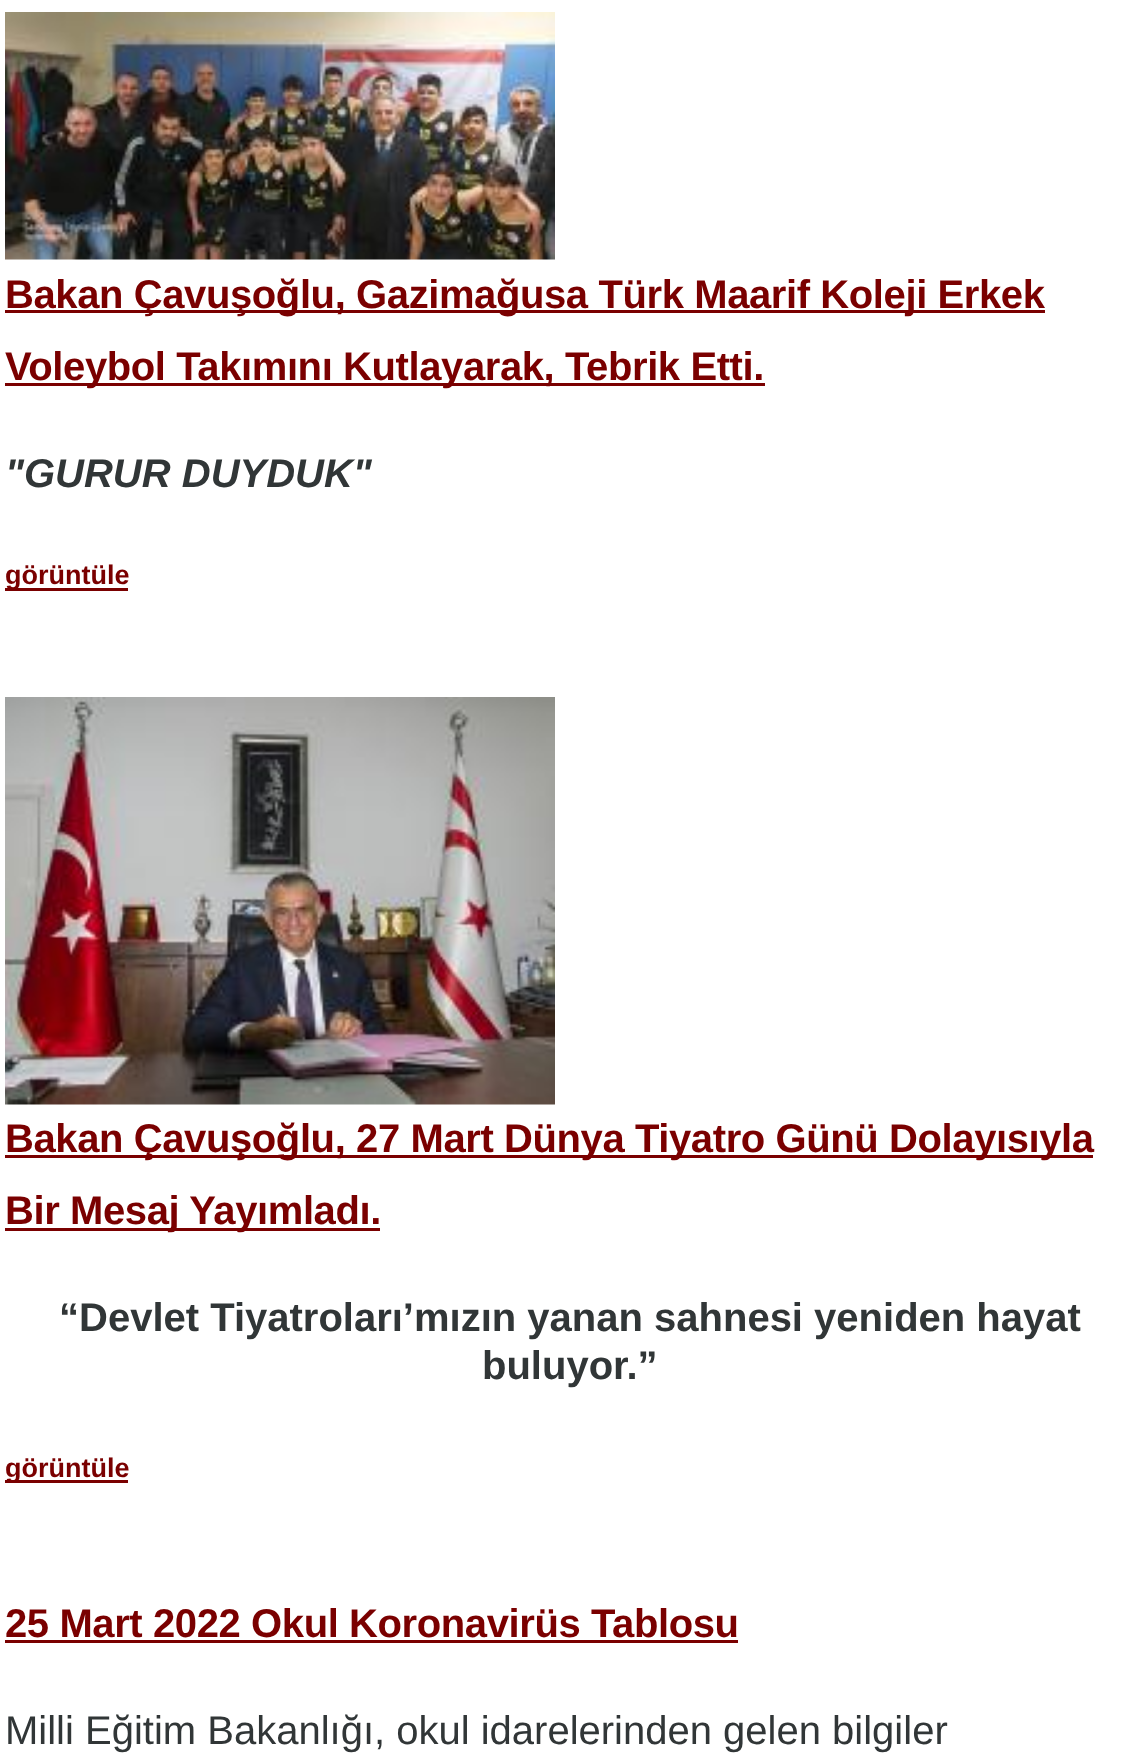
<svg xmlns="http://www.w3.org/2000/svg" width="1140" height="1763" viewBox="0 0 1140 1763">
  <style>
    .t1 { font: bold 40px Liberation Sans; letter-spacing: -0.4px; fill: #7a0000; }
    .t2 { font: italic bold 40px Liberation Sans; fill: #313637; }
    .t3 { font: bold 27px Liberation Sans; fill: #7a0000; }
    .t4 { font: bold 40px Liberation Sans; fill: #313637; }
    .t5 { font: 40px Liberation Sans; fill: #313637; }
  </style>
  <rect width="100%" height="100%" fill="#fff"/>
  <image x="5" y="12" width="550" height="248" href="images/1.png"/>
  <rect x="5" y="310" width="1040" height="3" fill="#7a0000"/>
  <text x="5" y="308" class="t1">Bakan Çavuşoğlu, Gazimağusa Türk Maarif Koleji Erkek</text>
  <rect x="5" y="383" width="760" height="3" fill="#7a0000"/>
  <text x="5" y="380" class="t1">Voleybol Takımını Kutlayarak, Tebrik Etti.</text>
  <text x="5" y="487" class="t2">"GURUR DUYDUK"</text>
  <rect x="5" y="588" width="123" height="3" fill="#7a0000"/>
  <text x="5" y="584" class="t3">görüntüle</text>
  <image x="5" y="697" width="550" height="408" href="images/2.png"/>
  <rect x="5" y="1155" width="1088" height="3" fill="#7a0000"/>
  <text x="5" y="1152" class="t1">Bakan Çavuşoğlu, 27 Mart Dünya Tiyatro Günü Dolayısıyla</text>
  <rect x="5" y="1228" width="375" height="3" fill="#7a0000"/>
  <text x="5" y="1224" class="t1">Bir Mesaj Yayımladı.</text>
  <text x="59" y="1331" class="t4">“Devlet Tiyatroları’mızın yanan sahnesi yeniden hayat</text>
  <text x="482" y="1379" class="t4">buluyor.”</text>
  <rect x="5" y="1480" width="123" height="3" fill="#7a0000"/>
  <text x="5" y="1477" class="t3">görüntüle</text>
  <text x="5" y="1637" class="t1">25 Mart 2022 Okul Koronavirüs Tablosu</text>
  <rect x="5" y="1640" width="733" height="3" fill="#7a0000"/>
  <text x="5" y="1744" class="t5">Milli Eğitim Bakanlığı, okul idarelerinden gelen bilgiler</text>
</svg>
